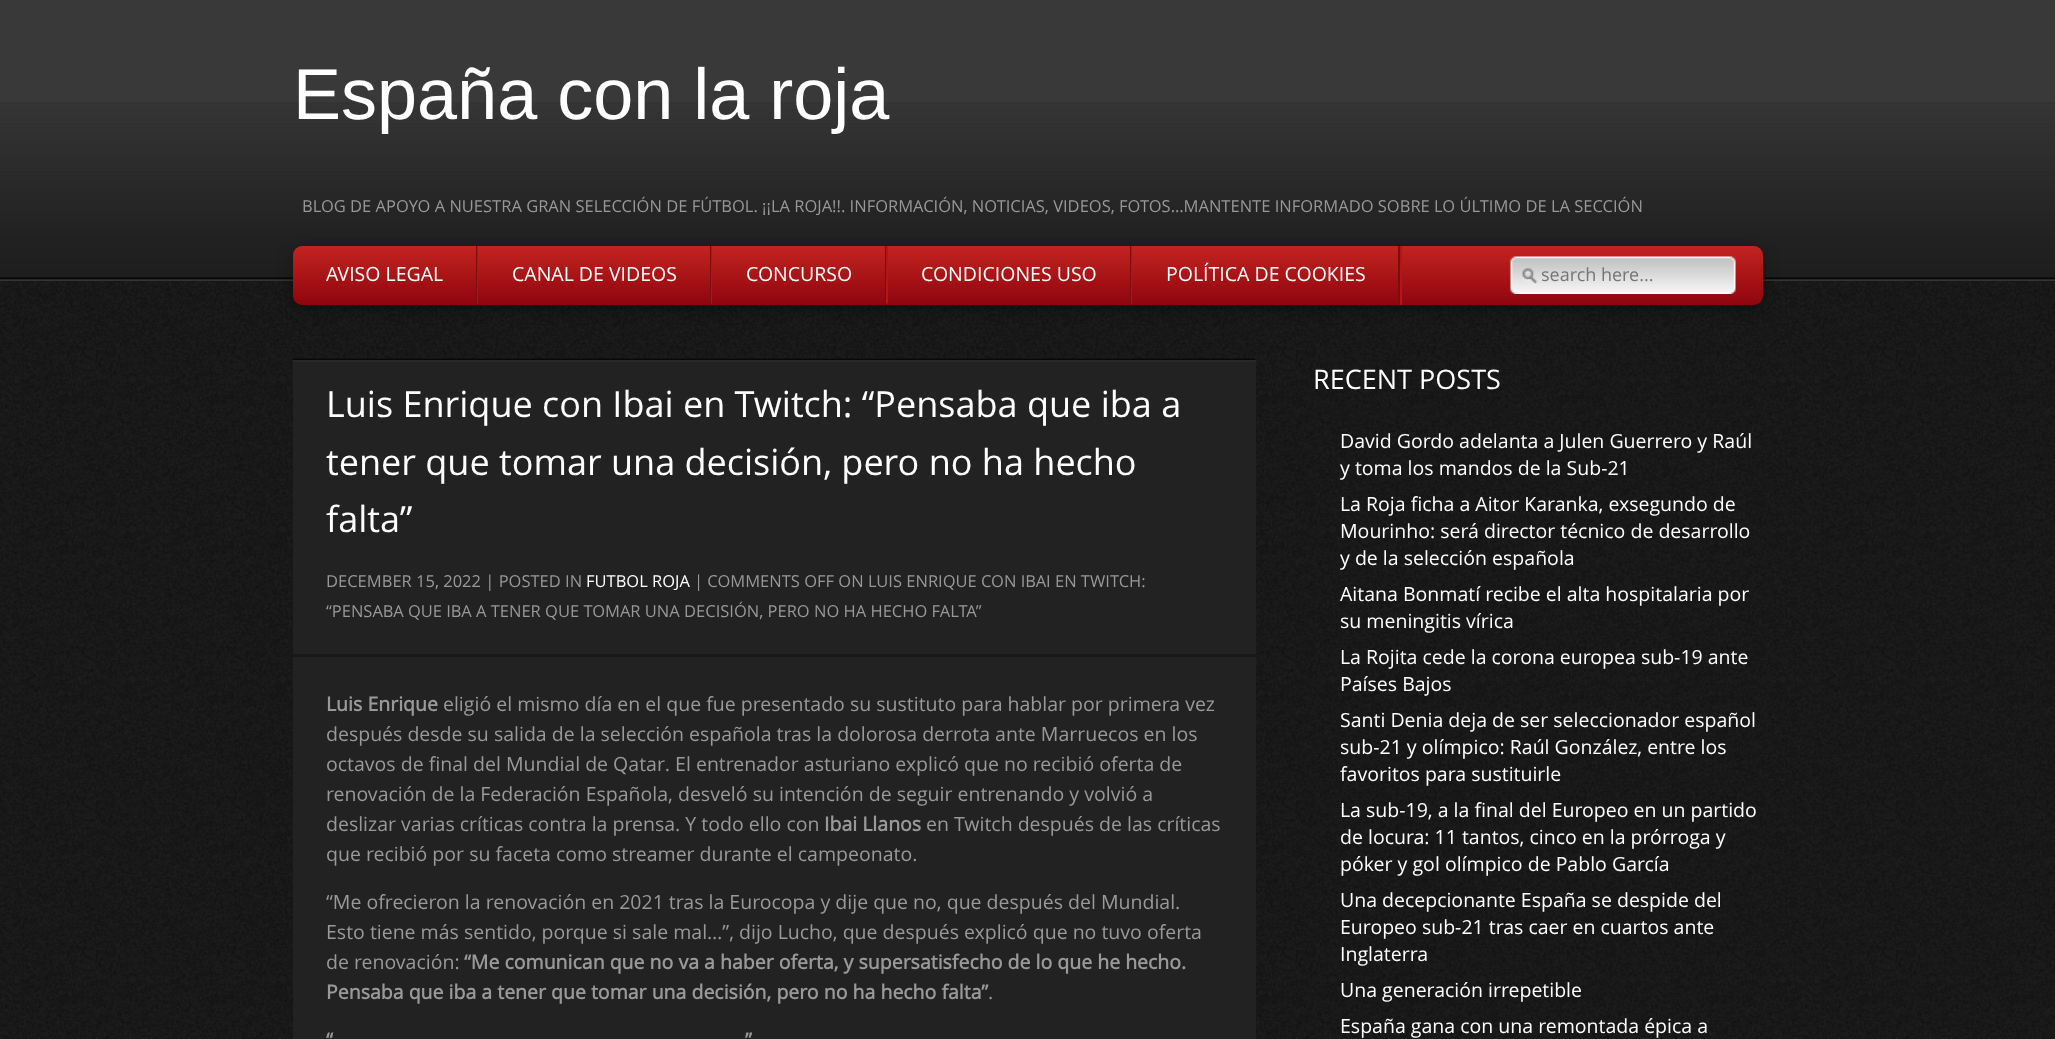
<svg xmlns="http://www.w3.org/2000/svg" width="2055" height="1039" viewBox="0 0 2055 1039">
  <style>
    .t1 { font: 72px Liberation Sans; fill: #fff; }
    .t2 { font: 16.5px Open Sans; fill: #999; }
    .t3 { font: 19.5px Open Sans; fill: #fff; }
    .t4 { font: 18px Open Sans; fill: #757575; }
    .t5 { font: 36px Open Sans; fill: #fff; }
    .t6 { font: 16.5px Open Sans; fill: #fff; }
    .t7 { font: bold 19.5px Open Sans; fill: #999; }
    .t8 { font: 19.5px Open Sans; fill: #999; }
    .t9 { font: 27px Open Sans; fill: #fff; }
  </style>
  <defs>
    <linearGradient id="g1" gradientUnits="userSpaceOnUse" x1="1028" y1="246" x2="1028" y2="305"><stop offset="0" stop-color="#c32420"/><stop offset="1" stop-color="#8f050e"/></linearGradient>
  </defs>
  <rect width="100%" height="100%" fill="#fff"/>
  <image x="0" y="281" width="2055" height="758" href="images/1.png"/>
  <rect x="0" y="0" width="2055" height="281" fill="#393939"/>
  <image x="0" y="102" width="2055" height="179" href="images/2.png"/>
  <text x="293" y="119" class="t1">España con la roja</text>
  <text x="302" y="212" class="t2">BLOG DE APOYO A NUESTRA GRAN SELECCIÓN DE FÚTBOL. ¡¡LA ROJA!!. INFORMACIÓN, NOTICIAS, VIDEOS, FOTOS…MANTENTE INFORMADO SOBRE LO ÚLTIMO DE LA SECCIÓN</text>
  <rect x="293" y="249" width="1470" height="59" rx="9" fill="#00000059" filter="blur(7.5px)"/>
  <rect x="293" y="246" width="1470" height="59" rx="9" fill="url(#g1)"/>
  <rect x="476" y="246" width="2" height="59" fill="#7b0d0f"/>
  <text x="326" y="281" class="t3">AVISO LEGAL</text>
  <rect x="710" y="246" width="2" height="59" fill="#7b0d0f"/>
  <path d="M477 304V246H478V303Z" fill="#b11719"/>
  <text x="512" y="281" class="t3">CANAL DE VIDEOS</text>
  <rect x="885" y="246" width="2" height="59" fill="#7b0d0f"/>
  <path d="M711 304V246H712V303Z" fill="#b11719"/>
  <text x="746" y="281" class="t3">CONCURSO</text>
  <rect x="1130" y="246" width="2" height="59" fill="#7b0d0f"/>
  <path d="M886 304V246H888V303Z" fill="#b11719"/>
  <text x="921" y="281" class="t3">CONDICIONES USO</text>
  <rect x="1400" y="246" width="2" height="59" fill="#b11719"/>
  <path d="M1400 246V304L1398 303V246Z" fill="#7b0d0f"/>
  <path d="M1131 304V246H1132V303Z" fill="#b11719"/>
  <text x="1166" y="281" class="t3">POLÍTICA DE COOKIES</text>
  <image x="1510" y="256" width="226" height="38" href="images/3.png"/>
  <text x="1541" y="281" class="t4">search here...</text>
  <rect x="293" y="359" width="963" height="680" fill="#222"/>
  <image x="292" y="358" width="964" height="4" href="images/4.png"/>
  <text x="326" y="417" class="t5">Luis Enrique con Ibai en Twitch: “Pensaba que iba a</text>
  <text x="326" y="475" class="t5">tener que tomar una decisión, pero no ha hecho</text>
  <text x="326" y="532" class="t5">falta”</text>
  <text x="326" y="587" class="t2">DECEMBER 15, 2022 | POSTED IN</text>
  <text x="586" y="587" class="t6">FUTBOL ROJA</text>
  <text x="694" y="587" class="t2">| COMMENTS OFF ON LUIS ENRIQUE CON IBAI EN TWITCH:</text>
  <text x="326" y="617" class="t2">“PENSABA QUE IBA A TENER QUE TOMAR UNA DECISIÓN, PERO NO HA HECHO FALTA”</text>
  <rect x="292" y="654" width="964" height="3" fill="#181818"/>
  <text x="326" y="711" class="t7">Luis Enrique</text>
  <text x="443" y="711" class="t8">eligió el mismo día en el que fue presentado su sustituto para hablar por primera vez</text>
  <text x="326" y="741" class="t8">después desde su salida de la selección española tras la dolorosa derrota ante Marruecos en los</text>
  <text x="326" y="771" class="t8">octavos de final del Mundial de Qatar. El entrenador asturiano explicó que no recibió oferta de</text>
  <text x="326" y="801" class="t8">renovación de la Federación Española, desveló su intención de seguir entrenando y volvió a</text>
  <text x="326" y="831" class="t8">deslizar varias críticas contra la prensa. Y todo ello con</text>
  <text x="824" y="831" class="t7">Ibai Llanos</text>
  <text x="926" y="831" class="t8">en Twitch después de las críticas</text>
  <text x="326" y="861" class="t8">que recibió por su faceta como streamer durante el campeonato.</text>
  <text x="326" y="909" class="t8">“Me ofrecieron la renovación en 2021 tras la Eurocopa y dije que no, que después del Mundial.</text>
  <text x="326" y="939" class="t8">Esto tiene más sentido, porque si sale mal…”, dijo Lucho, que después explicó que no tuvo oferta</text>
  <text x="326" y="969" class="t8">de renovación:</text>
  <text x="464" y="969" class="t7">“Me comunican que no va a haber oferta, y supersatisfecho de lo que he hecho.</text>
  <text x="326" y="999" class="t7">Pensaba que iba a tener que tomar una decisión, pero no ha hecho falta”</text>
  <text x="988" y="999" class="t8">.</text>
  <text x="326" y="1047" class="t7">“</text>
  <text x="745" y="1047" class="t7">”</text>
  <rect x="1312" y="408" width="451" height="3" fill="#181818"/>
  <text x="1313" y="389" class="t9">RECENT POSTS</text>
  <text x="1340" y="448" class="t3">David Gordo adelanta a Julen Guerrero y Raúl</text>
  <text x="1340" y="475" class="t3">y toma los mandos de la Sub-21</text>
  <text x="1340" y="511" class="t3">La Roja ficha a Aitor Karanka, exsegundo de</text>
  <text x="1340" y="538" class="t3">Mourinho: será director técnico de desarrollo</text>
  <text x="1340" y="565" class="t3">y de la selección española</text>
  <text x="1340" y="601" class="t3">Aitana Bonmatí recibe el alta hospitalaria por</text>
  <text x="1340" y="628" class="t3">su meningitis vírica</text>
  <text x="1340" y="664" class="t3">La Rojita cede la corona europea sub-19 ante</text>
  <text x="1340" y="691" class="t3">Países Bajos</text>
  <text x="1340" y="727" class="t3">Santi Denia deja de ser seleccionador español</text>
  <text x="1340" y="754" class="t3">sub-21 y olímpico: Raúl González, entre los</text>
  <text x="1340" y="781" class="t3">favoritos para sustituirle</text>
  <text x="1340" y="817" class="t3">La sub-19, a la final del Europeo en un partido</text>
  <text x="1340" y="844" class="t3">de locura: 11 tantos, cinco en la prórroga y</text>
  <text x="1340" y="871" class="t3">póker y gol olímpico de Pablo García</text>
  <text x="1340" y="907" class="t3">Una decepcionante España se despide del</text>
  <text x="1340" y="934" class="t3">Europeo sub-21 tras caer en cuartos ante</text>
  <text x="1340" y="961" class="t3">Inglaterra</text>
  <text x="1340" y="997" class="t3">Una generación irrepetible</text>
  <text x="1340" y="1033" class="t3">España gana con una remontada épica a</text>
</svg>
